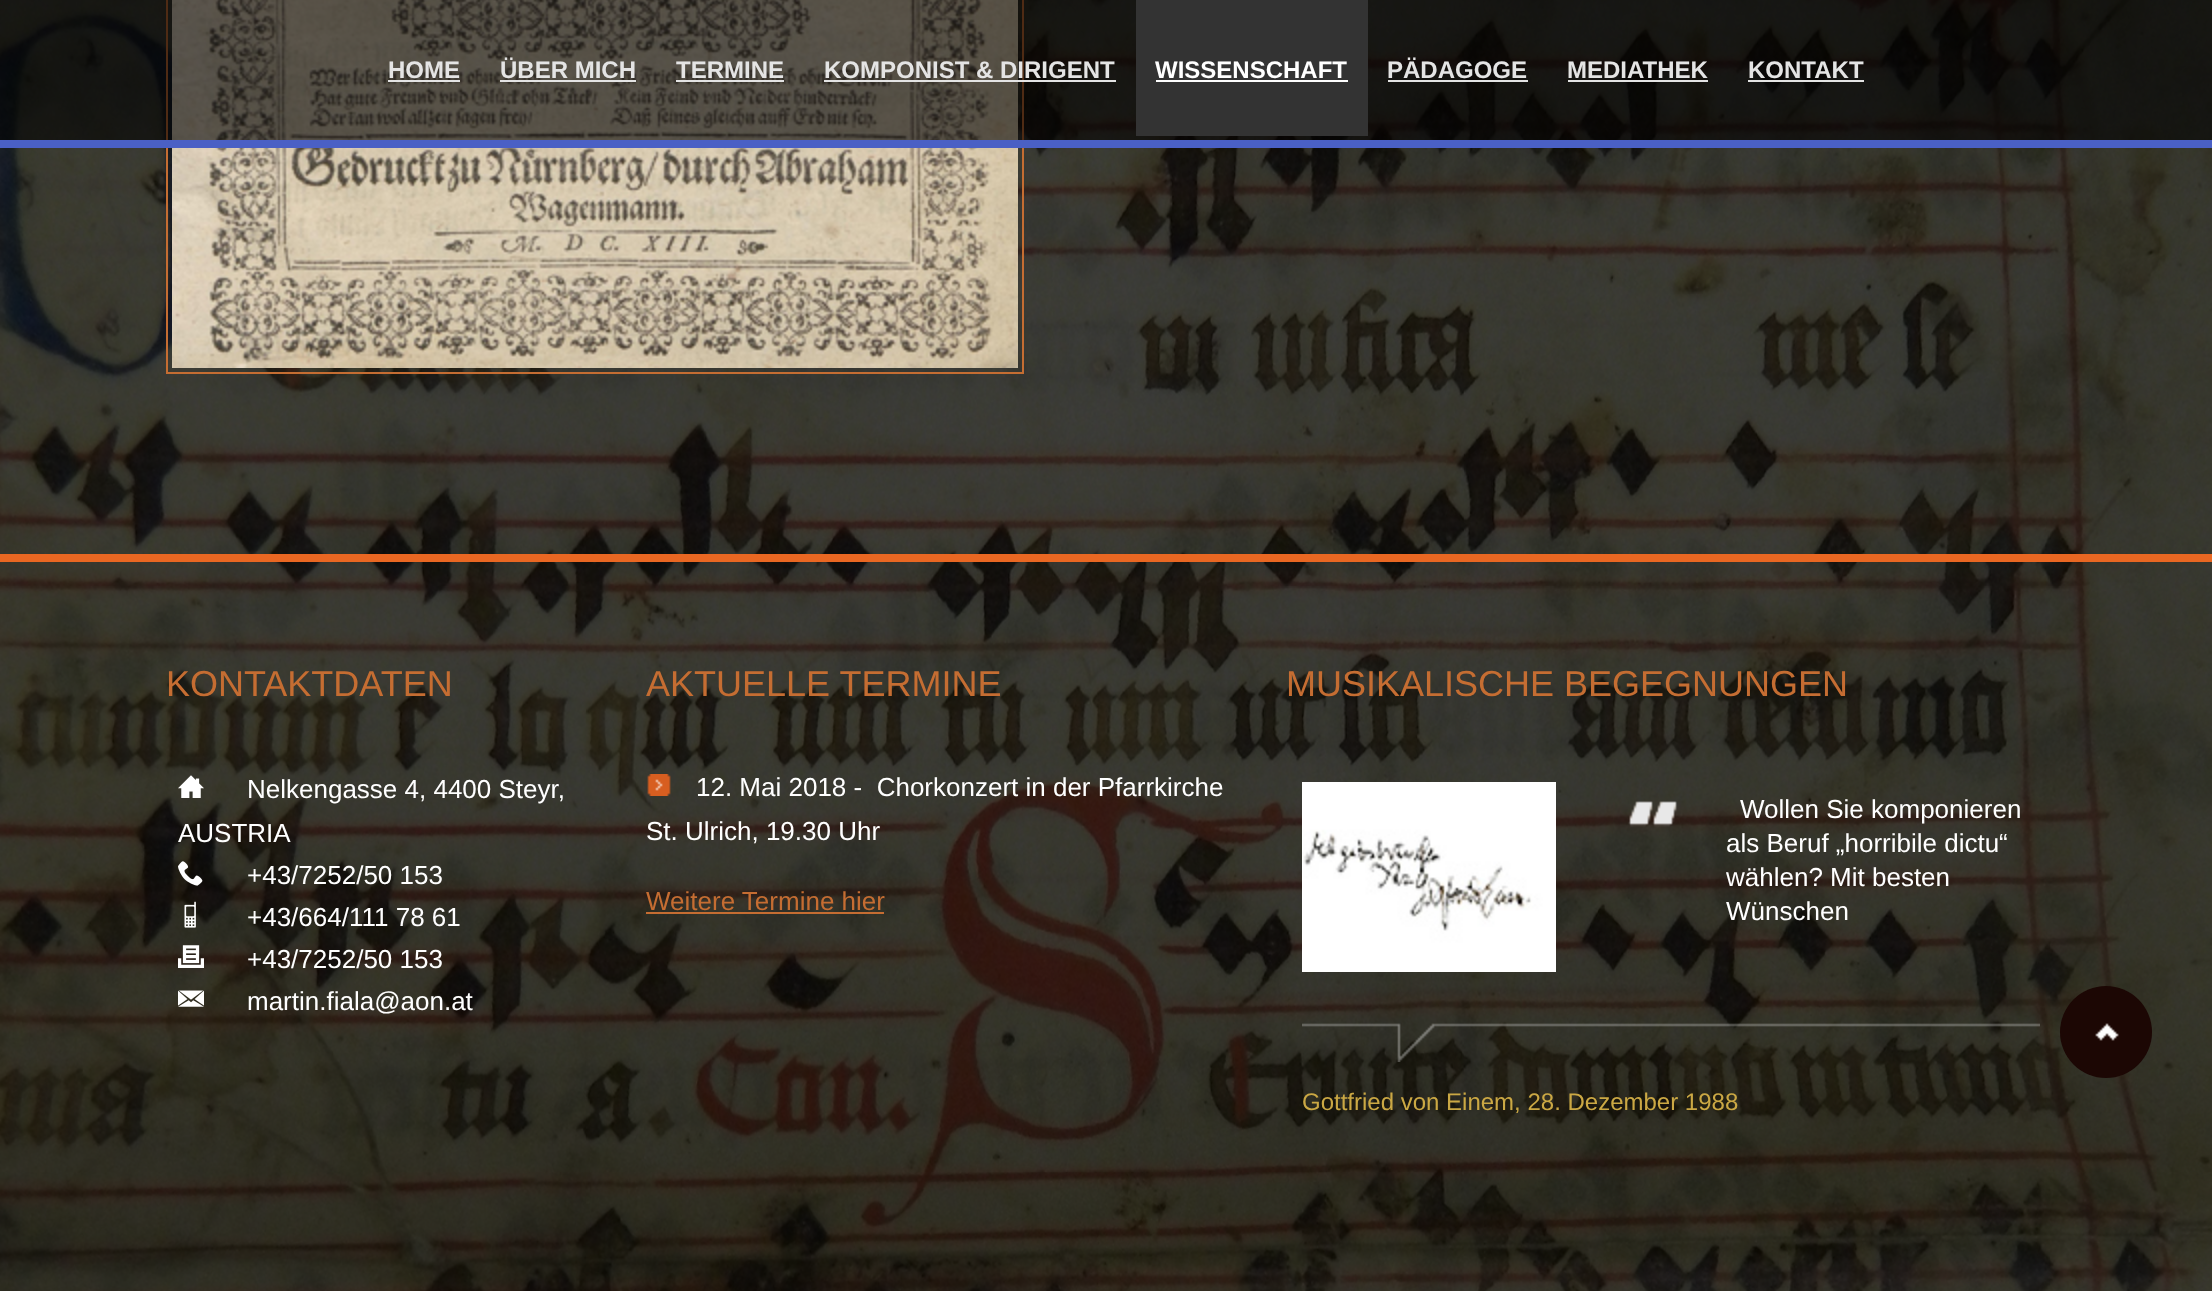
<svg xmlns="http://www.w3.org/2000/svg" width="2212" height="1291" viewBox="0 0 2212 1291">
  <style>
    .t1 { font: bold 24px Liberation Sans; fill: #e4e4e4; }
    .t2 { font: bold 24px Liberation Sans; fill: #fff; }
    .t3 { font: 36px Liberation Sans; fill: #c56d32; }
    .t4 { font: 26px Liberation Sans; fill: #fff; }
    .t5 { font: 26px Liberation Sans; fill: #c56d32; }
    .t6 { font: 24px Liberation Sans; fill: #cba844; }
  </style>
  <rect width="100%" height="100%" fill="#fff"/>
  <image x="0" y="0" width="2212" height="1291" href="images/1.png"/>
  <rect x="0" y="0" width="2212" height="554" fill="#000000b3"/>
  <rect x="167" y="-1" width="856" height="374" fill="none" stroke="#c56d32" stroke-width="2"/>
  <image x="172" y="0" width="846" height="368" href="images/2.png"/>
  <rect x="0" y="0" width="2212" height="140" fill="#00000099"/>
  <rect x="0" y="140" width="2212" height="8" fill="#4a60c5"/>
  <text x="388" y="78" class="t1">HOME</text>
  <rect x="388" y="80" width="72" height="2" fill="#e4e4e4"/>
  <text x="500" y="78" class="t1">ÜBER MICH</text>
  <rect x="500" y="80" width="136" height="2" fill="#e4e4e4"/>
  <text x="676" y="78" class="t1">TERMINE</text>
  <rect x="676" y="80" width="108" height="2" fill="#e4e4e4"/>
  <text x="824" y="78" class="t1">KOMPONIST &amp; DIRIGENT</text>
  <rect x="824" y="80" width="292" height="2" fill="#e4e4e4"/>
  <rect x="1136" y="0" width="232" height="136" fill="#333"/>
  <text x="1155" y="78" class="t2">WISSENSCHAFT</text>
  <rect x="1156" y="80" width="192" height="2" fill="#fff"/>
  <text x="1387" y="78" class="t1">PÄDAGOGE</text>
  <rect x="1388" y="80" width="140" height="2" fill="#e4e4e4"/>
  <text x="1567" y="78" class="t1">MEDIATHEK</text>
  <rect x="1568" y="80" width="140" height="2" fill="#e4e4e4"/>
  <text x="1748" y="78" class="t1">KONTAKT</text>
  <rect x="1748" y="80" width="116" height="2" fill="#e4e4e4"/>
  <rect x="0" y="562" width="2212" height="729" fill="#000000b3"/>
  <rect x="0" y="554" width="2212" height="8" fill="#e96722"/>
  <text x="166" y="696" class="t3">KONTAKTDATEN</text>
  <image x="178" y="775" width="26" height="23" href="images/3.png"/>
  <text x="247" y="798" class="t4">Nelkengasse 4, 4400 Steyr,</text>
  <text x="178" y="842" class="t4">AUSTRIA</text>
  <image x="178" y="861" width="25" height="25" href="images/4.png"/>
  <text x="247" y="884" class="t4">+43/7252/50 153</text>
  <image x="184" y="901" width="12" height="27" href="images/5.png"/>
  <text x="247" y="926" class="t4">+43/664/111 78 61</text>
  <image x="178" y="945" width="26" height="23" href="images/6.png"/>
  <text x="247" y="968" class="t4">+43/7252/50 153</text>
  <image x="178" y="990" width="26" height="17" href="images/7.png"/>
  <text x="247" y="1010" class="t4">martin.fiala@aon.at</text>
  <text x="646" y="696" class="t3">AKTUELLE TERMINE</text>
  <image x="647" y="774" width="24" height="22" href="images/8.png"/>
  <text x="696" y="796" class="t4" xml:space="preserve">12. Mai 2018 -  Chorkonzert in der Pfarrkirche</text>
  <text x="646" y="840" class="t4">St. Ulrich, 19.30 Uhr</text>
  <text x="646" y="910" class="t5">Weitere Termine hier</text>
  <rect x="646" y="912" width="238" height="2" fill="#c56d32"/>
  <text x="1286" y="696" class="t3">MUSIKALISCHE BEGEGNUNGEN</text>
  <image x="1302" y="782" width="254" height="190" href="images/9.png"/>
  <image x="1628" y="801" width="49" height="26" href="images/10.png"/>
  <text x="1740" y="818" class="t4">Wollen Sie komponieren</text>
  <text x="1726" y="852" class="t4">als Beruf „horribile dictu“</text>
  <text x="1726" y="886" class="t4">wählen? Mit besten</text>
  <text x="1726" y="920" class="t4">Wünschen</text>
  <image x="1302" y="1023" width="738" height="39" href="images/11.png"/>
  <text x="1302" y="1110" class="t6">Gottfried von Einem, 28. Dezember 1988</text>
  <image x="2060" y="986" width="92" height="92" href="images/12.png"/>
</svg>
